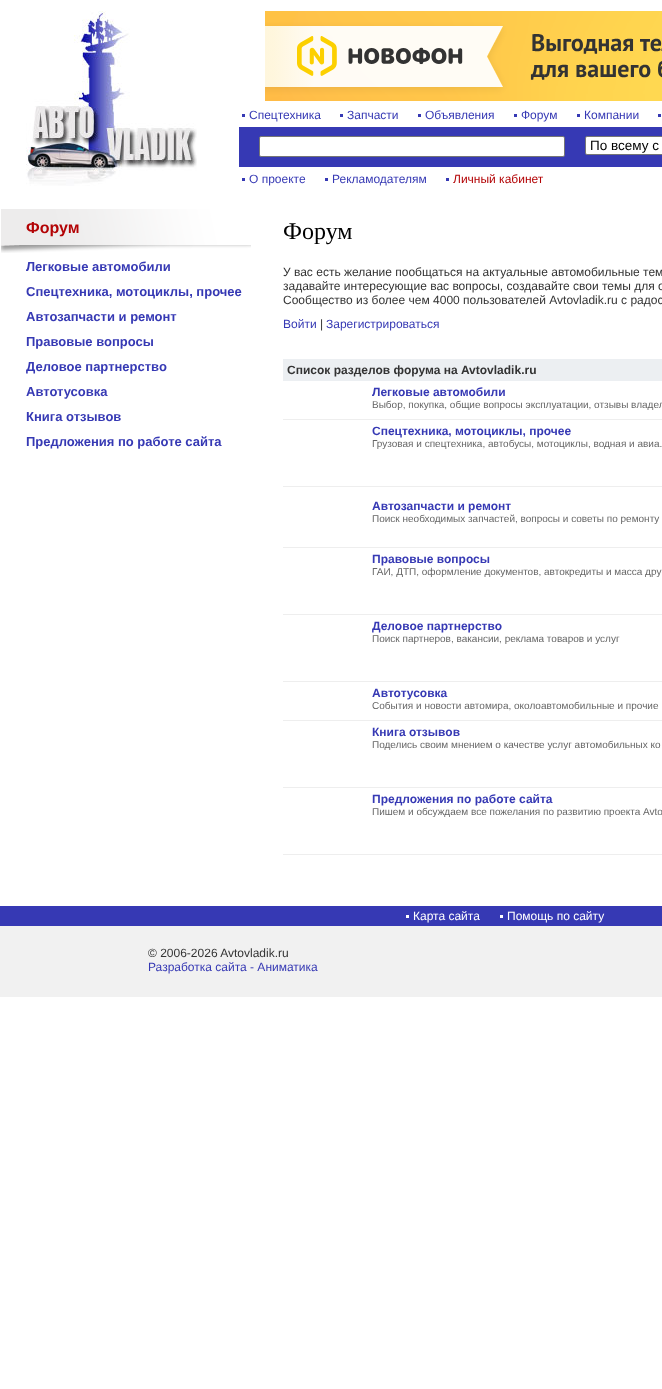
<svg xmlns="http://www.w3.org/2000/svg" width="662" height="1389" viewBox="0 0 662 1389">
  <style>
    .t1 { font: 12px Liberation Sans; fill: #3639b4; }
    .t2 { font: 13.5px Liberation Sans; fill: #000; }
    .t3 { font: 12px Liberation Sans; fill: #b30305; }
    .t4 { font: bold 16px Liberation Sans; fill: #b30305; }
    .t5 { font: bold 13px Liberation Sans; fill: #3639b4; }
    .t6 { font: 24px Liberation Serif; fill: #000; }
    .t7 { font: 12px Liberation Sans; fill: #333; }
    .t8 { font: bold 12px Liberation Sans; fill: #333; }
    .t9 { font: bold 12px Liberation Sans; fill: #3639b4; }
    .t10 { font: 10px Liberation Sans; fill: #666; }
    .t11 { font: 12px Liberation Sans; fill: #fff; }
  </style>
  <rect width="100%" height="100%" fill="#fff"/>
  <image x="26" y="11" width="171" height="175" href="images/1.png"/>
  <image x="265" y="11" width="397" height="90" href="images/2.png"/>
  <text x="249" y="119" class="t1">Спецтехника</text>
  <rect x="242" y="114" width="3" height="3" fill="#3639b4"/>
  <text x="347" y="119" class="t1">Запчасти</text>
  <rect x="340" y="114" width="3" height="3" fill="#3639b4"/>
  <text x="425" y="119" class="t1">Объявления</text>
  <rect x="418" y="114" width="3" height="3" fill="#3639b4"/>
  <text x="521" y="119" class="t1">Форум</text>
  <rect x="514" y="114" width="3" height="3" fill="#3639b4"/>
  <text x="584" y="119" class="t1">Компании</text>
  <rect x="577" y="114" width="3" height="3" fill="#3639b4"/>
  <rect x="658" y="114" width="3" height="3" fill="#3639b4"/>
  <rect x="239" y="127" width="423" height="40" fill="#3639b4"/>
  <rect x="259.5" y="136.5" width="305" height="20" rx="1.5" fill="#fff" stroke="#767676"/>
  <rect x="585.5" y="136.5" width="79" height="18" rx="1.5" fill="#fff" stroke="#767676"/>
  <text x="590" y="150" class="t2">По всему с</text>
  <text x="249" y="183" class="t1">О проекте</text>
  <rect x="242" y="178" width="3" height="3" fill="#3639b4"/>
  <text x="332" y="183" class="t1">Рекламодателям</text>
  <rect x="325" y="178" width="3" height="3" fill="#3639b4"/>
  <text x="453" y="183" class="t3">Личный кабинет</text>
  <rect x="446" y="178" width="3" height="3" fill="#3639b4"/>
  <image x="1" y="209" width="250" height="44" href="images/3.png"/>
  <text x="26" y="233" class="t4">Форум</text>
  <text x="26" y="271" class="t5">Легковые автомобили</text>
  <text x="26" y="296" class="t5">Спецтехника, мотоциклы, прочее</text>
  <text x="26" y="321" class="t5">Автозапчасти и ремонт</text>
  <text x="26" y="346" class="t5">Правовые вопросы</text>
  <text x="26" y="371" class="t5">Деловое партнерство</text>
  <text x="26" y="396" class="t5">Автотусовка</text>
  <text x="26" y="421" class="t5">Книга отзывов</text>
  <text x="26" y="446" class="t5">Предложения по работе сайта</text>
  <text x="283" y="239" class="t6">Форум</text>
  <text x="283" y="276" class="t7">У вас есть желание пообщаться на актуальные автомобильные тем</text>
  <text x="283" y="290" class="t7">задавайте интересующие вас вопросы, создавайте свои темы для о</text>
  <text x="283" y="304" class="t7">Сообщество из более чем 4000 пользователей Avtovladik.ru с радос</text>
  <text x="283" y="328" class="t1">Войти</text>
  <text x="320" y="328" class="t7">|</text>
  <text x="326" y="328" class="t1">Зарегистрироваться</text>
  <rect x="283" y="359" width="379" height="22" fill="#eceff2"/>
  <text x="287" y="374" class="t8">Список разделов форума на Avtovladik.ru</text>
  <rect x="283" y="419" width="379" height="1" fill="#eee"/>
  <text x="372" y="396" class="t9">Легковые автомобили</text>
  <text x="372" y="408" class="t10">Выбор, покупка, общие вопросы эксплуатации, отзывы владел</text>
  <rect x="283" y="486" width="379" height="1" fill="#eee"/>
  <text x="372" y="435" class="t9">Спецтехника, мотоциклы, прочее</text>
  <text x="372" y="447" class="t10">Грузовая и спецтехника, автобусы, мотоциклы, водная и авиа.</text>
  <rect x="283" y="547" width="379" height="1" fill="#eee"/>
  <text x="372" y="510" class="t9">Автозапчасти и ремонт</text>
  <text x="372" y="522" class="t10">Поиск необходимых запчастей, вопросы и советы по ремонту</text>
  <rect x="283" y="614" width="379" height="1" fill="#eee"/>
  <text x="372" y="563" class="t9">Правовые вопросы</text>
  <text x="372" y="575" class="t10">ГАИ, ДТП, оформление документов, автокредиты и масса дру</text>
  <rect x="283" y="681" width="379" height="1" fill="#eee"/>
  <text x="372" y="630" class="t9">Деловое партнерство</text>
  <text x="372" y="642" class="t10">Поиск партнеров, вакансии, реклама товаров и услуг</text>
  <rect x="283" y="720" width="379" height="1" fill="#eee"/>
  <text x="372" y="697" class="t9">Автотусовка</text>
  <text x="372" y="709" class="t10">События и новости автомира, околоавтомобильные и прочие</text>
  <rect x="283" y="787" width="379" height="1" fill="#eee"/>
  <text x="372" y="736" class="t9">Книга отзывов</text>
  <text x="372" y="748" class="t10">Поделись своим мнением о качестве услуг автомобильных ко</text>
  <rect x="283" y="854" width="379" height="1" fill="#eee"/>
  <text x="372" y="803" class="t9">Предложения по работе сайта</text>
  <text x="372" y="815" class="t10">Пишем и обсуждаем все пожелания по развитию проекта Avto</text>
  <rect x="0" y="926" width="662" height="71" fill="#f1f1f1"/>
  <rect x="0" y="906" width="662" height="20" fill="#3639b4"/>
  <text x="413" y="920" class="t11">Карта сайта</text>
  <rect x="406" y="915" width="3" height="3" fill="#fff"/>
  <text x="507" y="920" class="t11">Помощь по сайту</text>
  <rect x="500" y="915" width="3" height="3" fill="#fff"/>
  <text x="148" y="957" class="t7">© 2006-2026 Avtovladik.ru</text>
  <text x="148" y="971" class="t1">Разработка сайта - Aниматика</text>
</svg>
